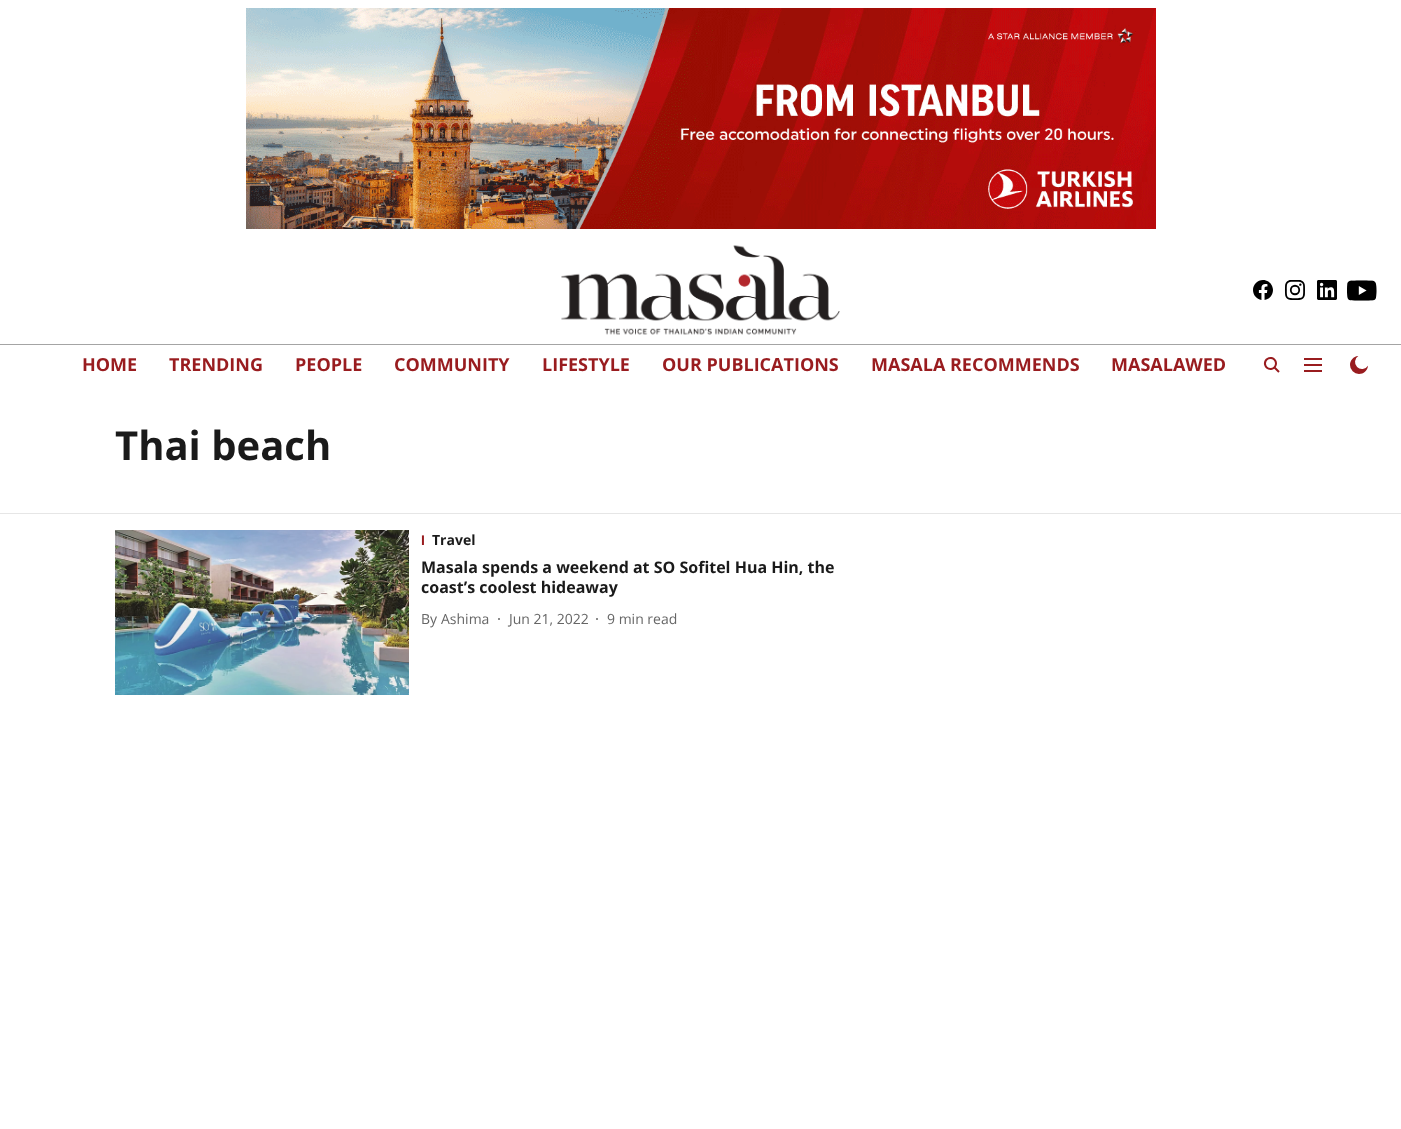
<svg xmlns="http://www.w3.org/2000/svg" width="1401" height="1129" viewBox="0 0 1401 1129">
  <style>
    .t1 { font: bold 18px Open Sans; fill: #991c1f; }
    .t2 { font: bold 40px Open Sans; fill: #1a1a1a; }
    .t3 { font: bold 14px Liberation Sans; fill: #991c1f; }
    .t4 { font: bold 14px Open Sans; fill: #1a1a1a; }
    .t5 { font: bold 16px Open Sans; fill: #1a1a1a; }
    .t6 { font: 14px Open Sans; fill: #666; }
  </style>
  <defs>
    <clipPath id="clip1"><rect x="421" y="530" width="3" height="19"/></clipPath>
  </defs>
  <rect width="100%" height="100%" fill="#fff"/>
  <image x="246" y="8" width="910" height="221" href="images/1.png"/>
  <rect x="0" y="344" width="1401" height="1" fill="#a4a4a4"/>
  <image x="561" y="245" width="279" height="90" href="images/2.png"/>
  <image x="1253" y="280" width="20" height="20" href="images/3.png"/>
  <image x="1284" y="280" width="21" height="20" href="images/4.png"/>
  <image x="1317" y="280" width="20" height="20" href="images/5.png"/>
  <image x="1347" y="280" width="30" height="21" href="images/6.png"/>
  <text x="82" y="371" class="t1">HOME</text>
  <text x="169" y="371" class="t1">TRENDING</text>
  <text x="295" y="371" class="t1">PEOPLE</text>
  <text x="394" y="371" class="t1">COMMUNITY</text>
  <text x="542" y="371" class="t1">LIFESTYLE</text>
  <text x="662" y="371" class="t1">OUR PUBLICATIONS</text>
  <text x="871" y="371" class="t1">MASALA RECOMMENDS</text>
  <text x="1111" y="371" class="t1">MASALAWED</text>
  <image x="1263" y="357" width="17" height="16" href="images/7.png"/>
  <image x="1304" y="358" width="18" height="14" href="images/8.png"/>
  <image x="1350" y="356" width="18" height="18" href="images/9.png"/>
  <rect x="0" y="513" width="1401" height="1" fill="#e6e6e6"/>
  <text x="115" y="460" class="t2">Thai beach</text>
  <image x="115" y="530" width="294" height="165" href="images/10.png"/>
  <g clip-path="url(#clip1)">
    <text x="421" y="545" class="t3">I</text>
  </g>
  <text x="432" y="545" class="t4">Travel</text>
  <text x="421" y="573" class="t5">Masala spends a weekend at SO Sofitel Hua Hin, the</text>
  <text x="421" y="593" class="t5">coast’s coolest hideaway</text>
  <text x="421" y="624" class="t6">By</text>
  <text x="441" y="624" class="t6">Ashima</text>
  <circle cx="499" cy="619" r="1" fill="#666"/>
  <text x="509" y="624" class="t6">Jun 21, 2022</text>
  <circle cx="597" cy="619" r="1" fill="#666"/>
  <text x="607" y="624" class="t6">9 min read</text>
</svg>
